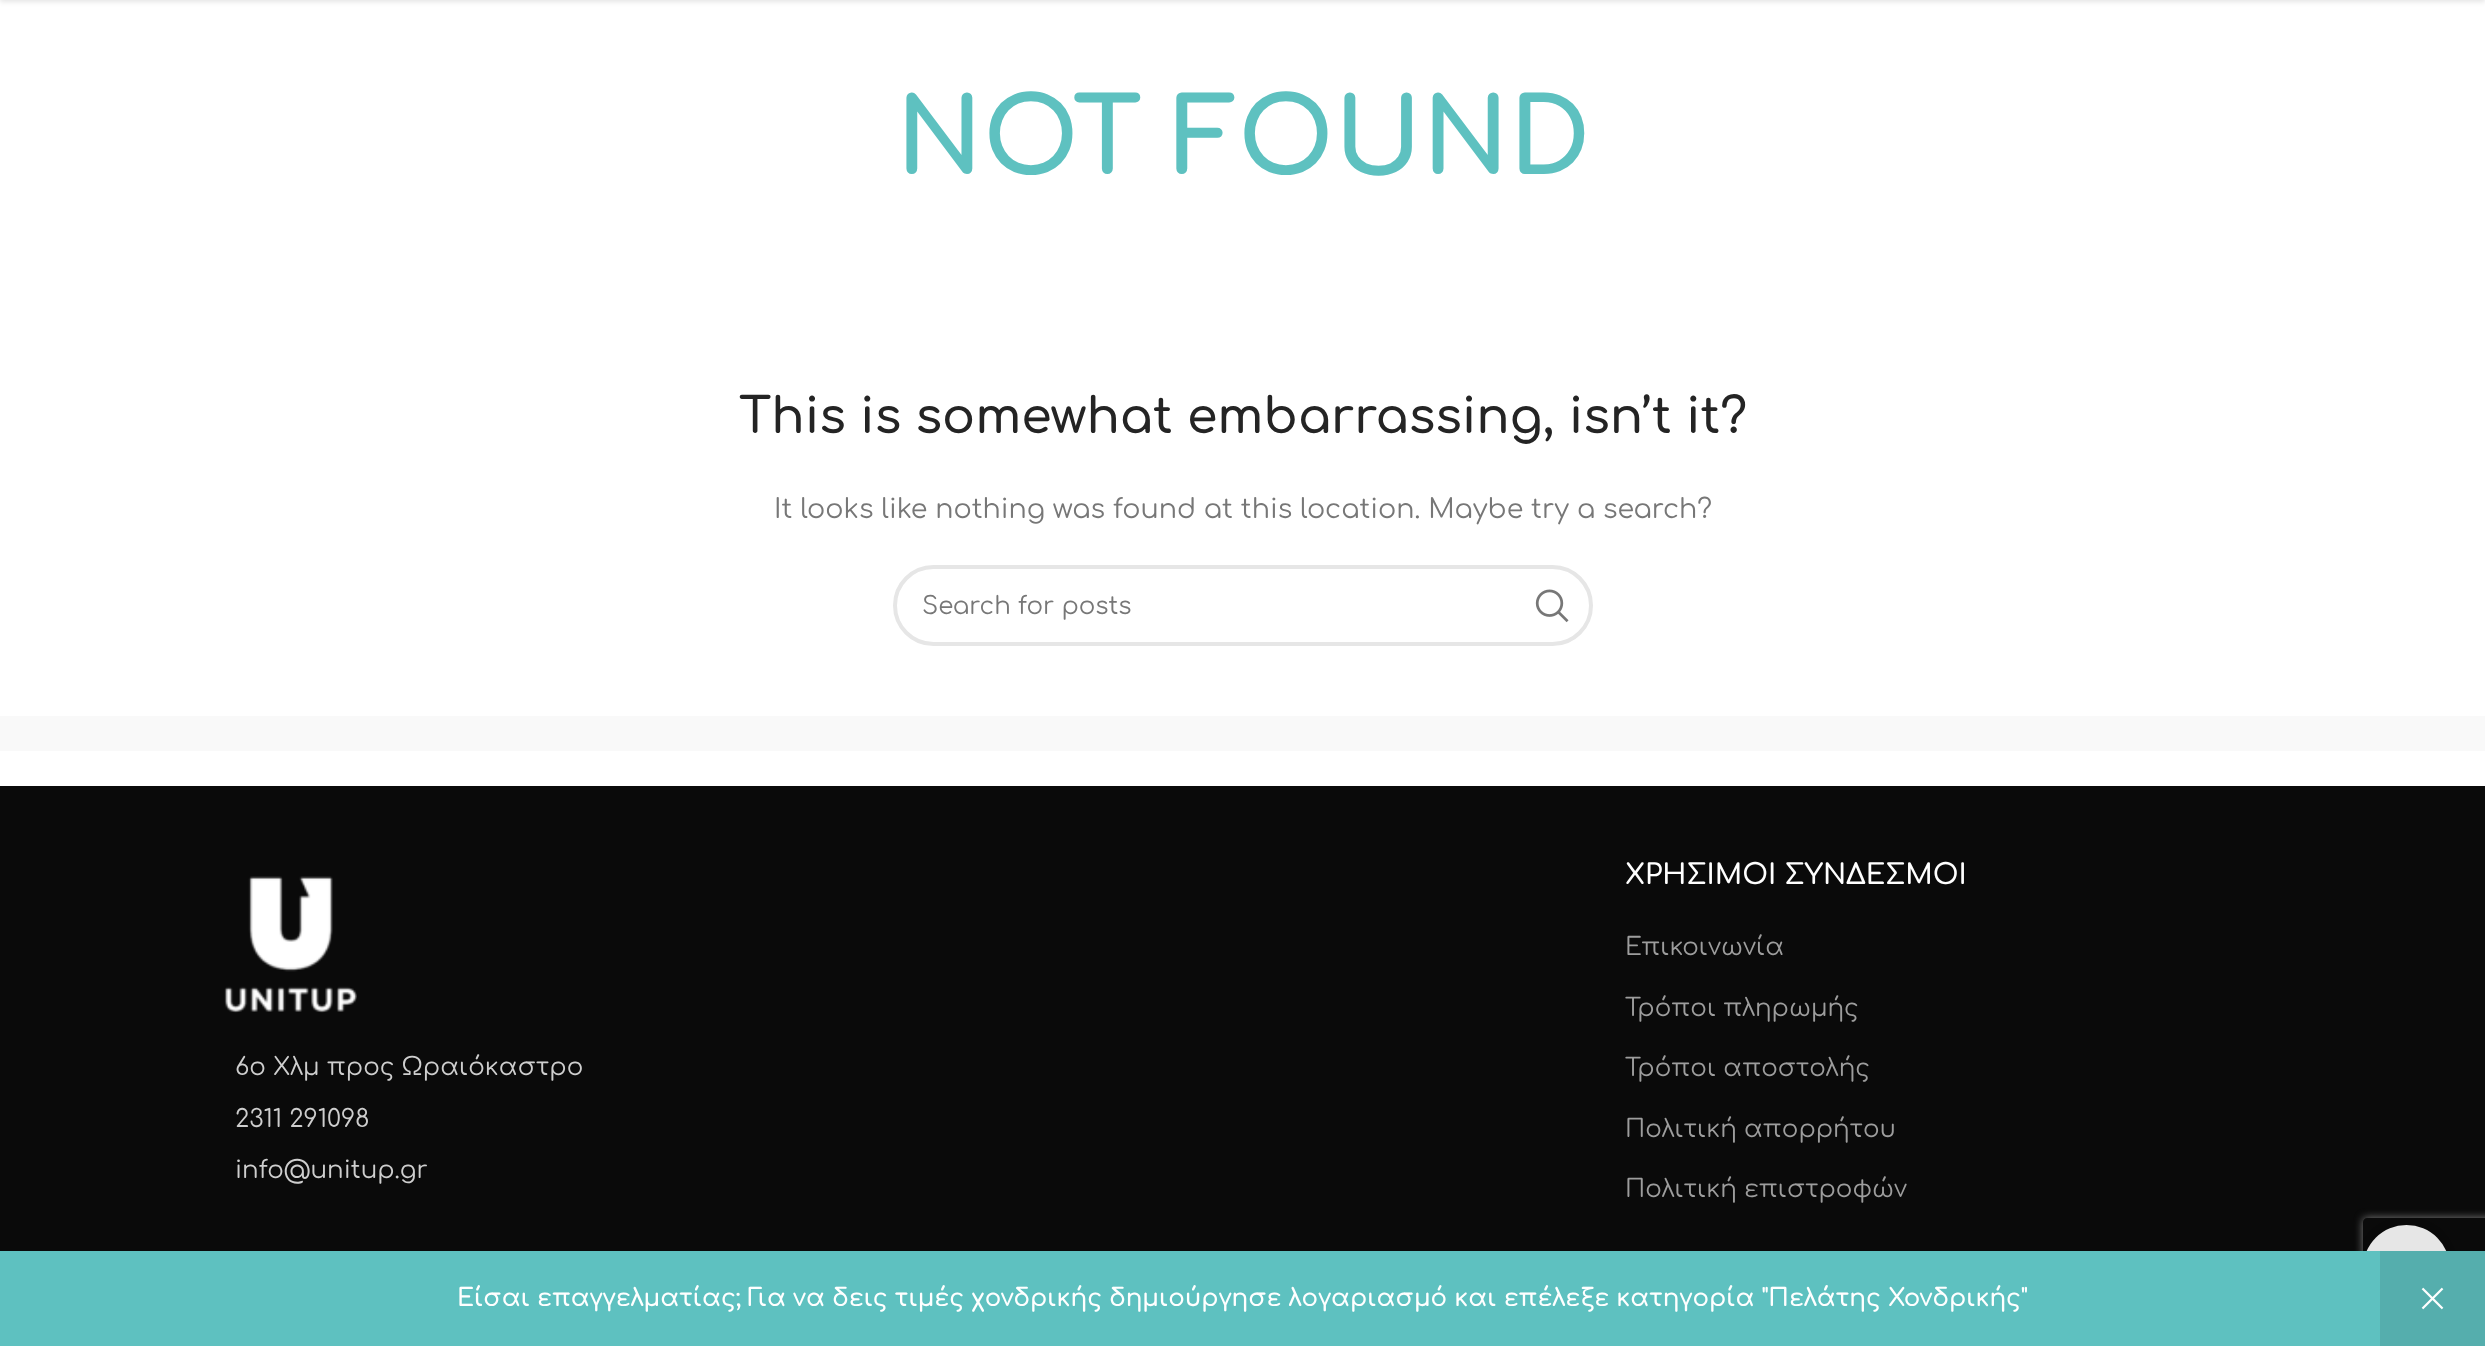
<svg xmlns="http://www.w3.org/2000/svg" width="2485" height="1346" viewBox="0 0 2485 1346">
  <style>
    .t1 { font: bold 104.5px Comfortaa; fill: #5ec1c0; }
    .t2 { font: 600 49px Comfortaa; fill: #242424; }
    .t3 { font: 26.95px Comfortaa; fill: #777; }
    .t4 { font: 24.5px Comfortaa; fill: #777; }
    .t5 { font: 24.5px Comfortaa; fill: #cecece; }
    .t6 { font: 600 28px Comfortaa; fill: #fff; }
    .t7 { font: 24.5px Comfortaa; fill: #9d9d9d; }
    .t8 { font: 600 24.5px Comfortaa; fill: #fff; }
  </style>
  <defs>
    <clipPath id="clip1"><path d="M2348 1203H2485V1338H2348ZM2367 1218H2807C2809 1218 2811 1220 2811 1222V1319C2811 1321 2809 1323 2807 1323H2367C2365 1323 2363 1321 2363 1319V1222C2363 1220 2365 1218 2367 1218Z" clip-rule="evenodd"/></clipPath>
  </defs>
  <rect width="100%" height="100%" fill="#fff"/>
  <rect x="0" y="-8" width="2485" height="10" fill="#0000001a" filter="blur(2.5px)"/>
  <text x="896" y="174" class="t1">NOT FOUND</text>
  <text x="739" y="433" class="t2">This is somewhat embarrassing, isn’t it?</text>
  <text x="774" y="518" class="t3">It looks like nothing was found at this location. Maybe try a search?</text>
  <rect x="895" y="567" width="696" height="77" rx="38.5" fill="none" stroke="#e6e6e6" stroke-width="4"/>
  <text x="922" y="614" class="t4">Search for posts</text>
  <image x="1535" y="589" width="34" height="34" href="images/1.png"/>
  <rect x="0" y="716" width="2485" height="35" fill="#f9f9f9"/>
  <rect x="0" y="786" width="2485" height="465" fill="#0a0a0a"/>
  <image x="224" y="876" width="133" height="137" href="images/2.png"/>
  <text x="235" y="1075" class="t5">6ο Χλμ προς Ωραιόκαστρο</text>
  <text x="235" y="1127" class="t5">2311 291098</text>
  <text x="235" y="1178" class="t5">info@unitup.gr</text>
  <text x="1625" y="884" class="t6">ΧΡΗΣΙΜΟΙ ΣΥΝΔΕΣΜΟΙ</text>
  <text x="1625" y="955" class="t7">Επικοινωνία</text>
  <text x="1625" y="1016" class="t7">Τρόποι πληρωμής</text>
  <text x="1625" y="1076" class="t7">Τρόποι αποστολής</text>
  <text x="1625" y="1137" class="t7">Πολιτική απορρήτου</text>
  <text x="1625" y="1197" class="t7">Πολιτική επιστροφών</text>
  <g clip-path="url(#clip1)">
    <rect x="2363" y="1218" width="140" height="105" rx="4" fill="#808080" filter="blur(4.5px)"/>
  </g>
  <rect x="2363" y="1225" width="87" height="88" rx="43.5" fill="#0000002b" filter="blur(4.5px)"/>
  <rect x="2363" y="1225" width="87" height="88" rx="43.5" fill="#e6e6e6"/>
  <rect x="0" y="1251" width="2380" height="95" fill="#5ec1c0"/>
  <text x="457" y="1306" class="t8">Είσαι επαγγελματίας; Για να δεις τιμές χονδρικής δημιούργησε λογαριασμό και επέλεξε κατηγορία "Πελάτης Χονδρικής"</text>
  <rect x="2380" y="1251" width="105" height="95" fill="#55aead"/>
  <image x="2421" y="1287" width="23" height="23" href="images/3.png"/>
</svg>
